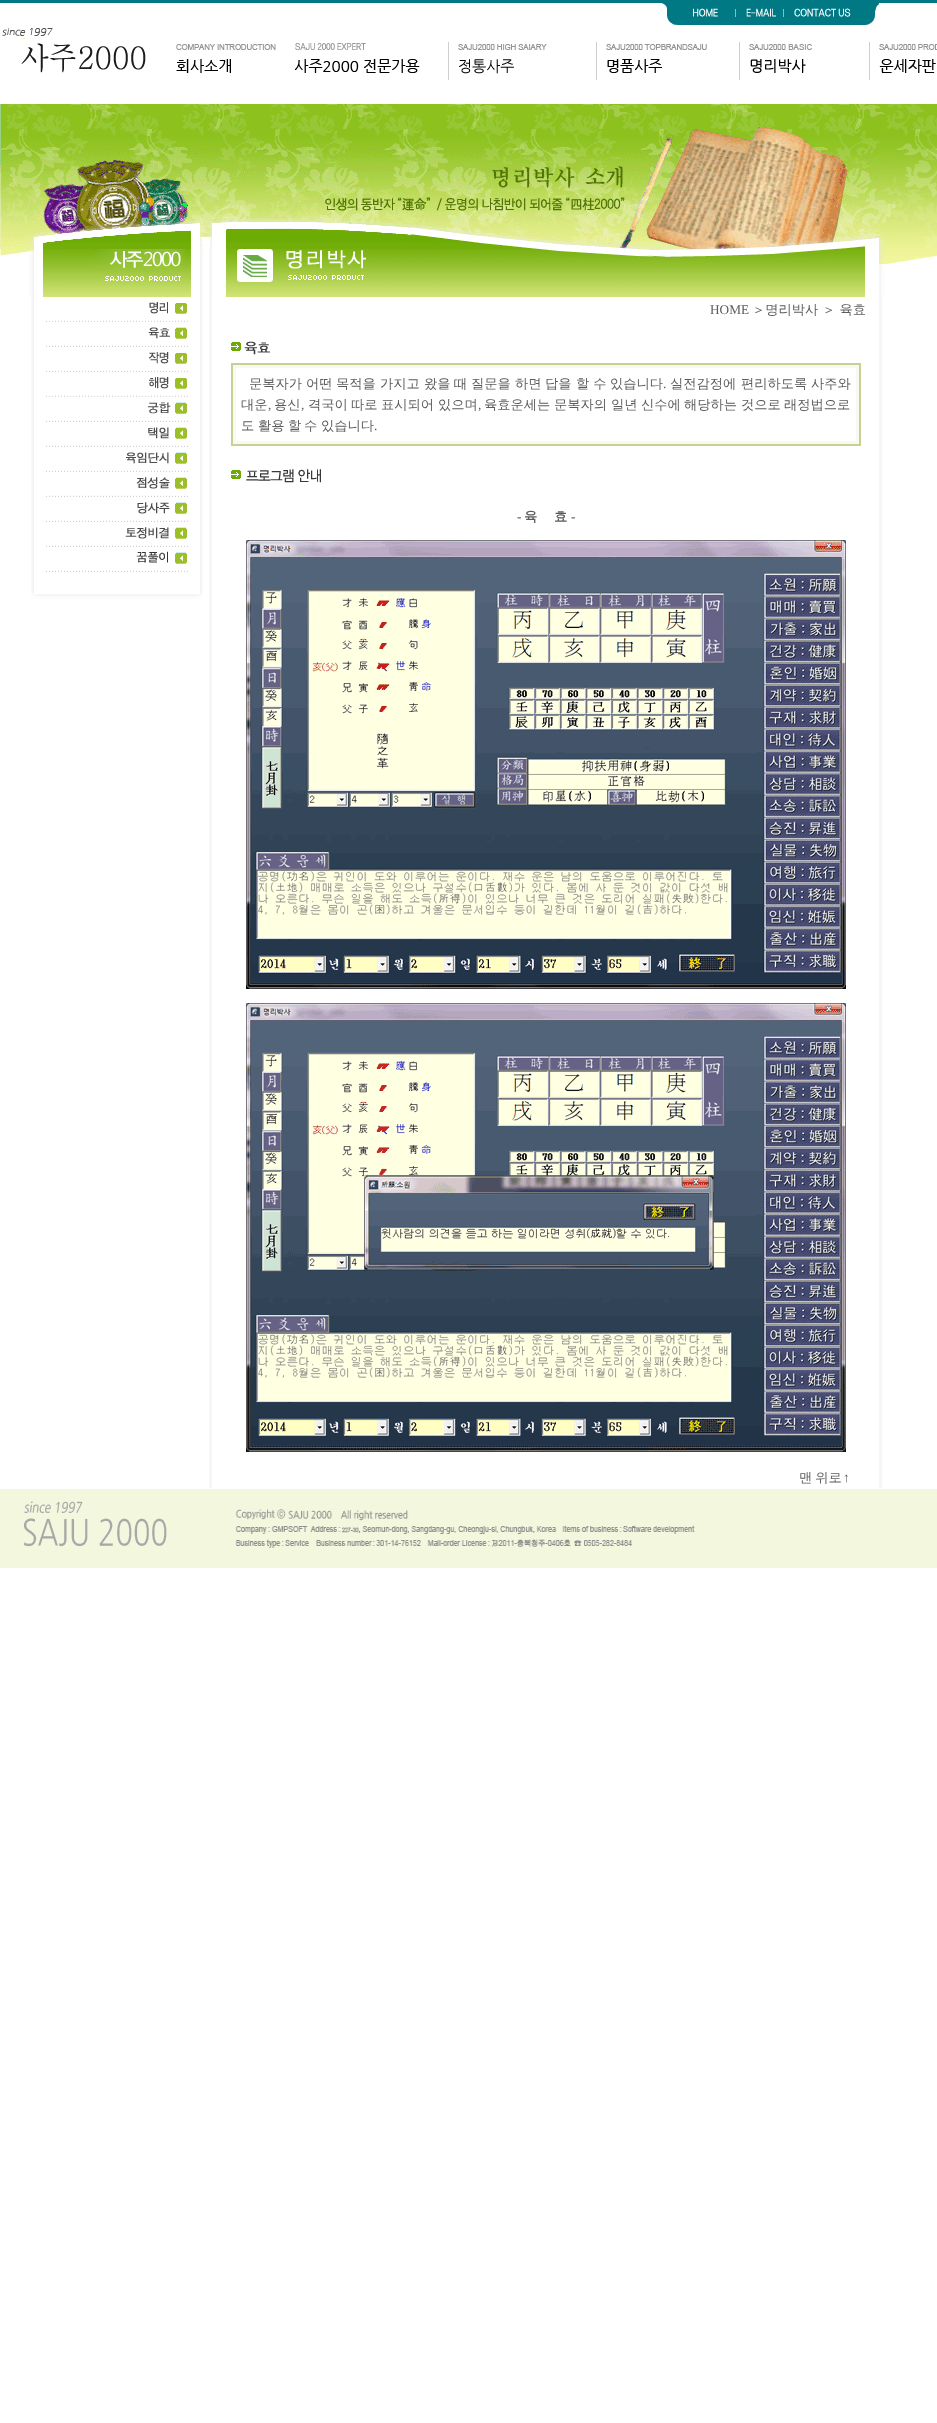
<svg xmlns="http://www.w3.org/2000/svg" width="937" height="2423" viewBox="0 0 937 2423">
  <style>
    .t1 { font: 13.25px Liberation Serif; fill: #5b5b5b; }
    .t2 { font: 500 13.25px WenQuanYi Zen Hei; fill: #5b5b5b; }
    .t3 { font: bold 13.25px Liberation Serif; fill: #5b5b5b; }
    .t4 { font: bold 13.25px WenQuanYi Zen Hei; fill: #5b5b5b; }
  </style>
  <rect width="100%" height="100%" fill="#fff"/>
  <rect x="0" y="0" width="937" height="3" fill="#007984"/>
  <image x="661" y="3" width="15" height="22" href="images/1.png"/>
  <image x="676" y="3" width="58" height="22" href="images/2.png"/>
  <image x="734" y="3" width="49" height="22" href="images/3.png"/>
  <image x="783" y="3" width="79" height="22" href="images/4.png"/>
  <image x="862" y="3" width="17" height="22" href="images/5.png"/>
  <image x="2" y="28" width="144" height="45" href="images/6.png"/>
  <image x="176" y="44" width="100" height="29" href="images/7.png"/>
  <image x="295" y="42" width="125" height="31" href="images/8.png"/>
  <image x="448" y="42" width="99" height="38" href="images/9.png"/>
  <image x="596" y="42" width="111" height="38" href="images/10.png"/>
  <image x="739" y="42" width="73" height="38" href="images/11.png"/>
  <image x="869" y="42" width="68" height="38" href="images/12.png"/>
  <image x="0" y="104" width="879" height="145" href="images/13.png"/>
  <image x="879" y="104" width="58" height="193" href="images/14.png"/>
  <image x="0" y="249" width="203" height="48" href="images/15.png"/>
  <image x="209" y="249" width="656" height="48" href="images/16.png"/>
  <image x="31" y="297" width="172" height="275" href="images/17.png"/>
  <image x="46" y="302" width="142" height="20" href="images/18.png"/>
  <image x="46" y="327" width="142" height="20" href="images/19.png"/>
  <image x="46" y="352" width="142" height="20" href="images/20.png"/>
  <image x="46" y="377" width="142" height="20" href="images/21.png"/>
  <image x="46" y="402" width="142" height="20" href="images/22.png"/>
  <image x="46" y="427" width="142" height="20" href="images/23.png"/>
  <image x="46" y="452" width="142" height="20" href="images/24.png"/>
  <image x="46" y="477" width="142" height="20" href="images/25.png"/>
  <image x="46" y="502" width="142" height="20" href="images/26.png"/>
  <image x="46" y="527" width="142" height="20" href="images/27.png"/>
  <image x="46" y="551" width="142" height="21" href="images/28.png"/>
  <image x="31" y="572" width="172" height="21" href="images/29.png"/>
  <image x="31" y="593" width="172" height="11" href="images/30.png"/>
  <rect x="209" y="297" width="3" height="1191" fill="#f6f6f6"/>
  <text x="710" y="314" class="t1">HOME</text>
  <text x="752" y="314" class="t2">＞명리박사 ＞ 육효</text>
  <image x="231" y="341" width="39" height="14" href="images/31.png"/>
  <rect x="233" y="365" width="626" height="79" fill="#faf9f0"/>
  <rect x="231.5" y="363.5" width="629" height="82" fill="none" stroke="#c6d196"/>
  <rect x="232.5" y="364.5" width="627" height="80" fill="none" stroke="#c6d196"/>
  <rect x="236" y="368" width="620" height="73" fill="#fff"/>
  <text x="249" y="388" class="t2">문복자가</text>
  <text x="306" y="388" class="t2">어떤</text>
  <text x="336" y="388" class="t2">목적을</text>
  <text x="380" y="388" class="t2">가지고</text>
  <text x="424" y="388" class="t2">왔을</text>
  <text x="454" y="388" class="t2">때</text>
  <text x="471" y="388" class="t2">질문을</text>
  <text x="515" y="388" class="t2">하면</text>
  <text x="545" y="388" class="t2">답을</text>
  <text x="576" y="388" class="t2">할 수</text>
  <text x="610" y="388" class="t2">있습니다</text>
  <text x="663" y="388" class="t1">.</text>
  <text x="670" y="388" class="t2">실전감정에</text>
  <text x="741" y="388" class="t2">편리하도록</text>
  <text x="811" y="388" class="t2">사주와</text>
  <text x="241" y="409" class="t2">대운</text>
  <text x="268" y="409" class="t1">,</text>
  <text x="274" y="409" class="t2">용신</text>
  <text x="301" y="409" class="t1">,</text>
  <text x="308" y="409" class="t2">격국이</text>
  <text x="351" y="409" class="t2">따로</text>
  <text x="381" y="409" class="t2">표시되어</text>
  <text x="438" y="409" class="t2">있으며</text>
  <text x="478" y="409" class="t1">,</text>
  <text x="484" y="409" class="t2">육효운세는</text>
  <text x="554" y="409" class="t2">문복자의</text>
  <text x="611" y="409" class="t2">일년</text>
  <text x="641" y="409" class="t2">신수에</text>
  <text x="684" y="409" class="t2">해당하는</text>
  <text x="741" y="409" class="t2">것으로</text>
  <text x="784" y="409" class="t2">래정법으로</text>
  <text x="241" y="430" class="t2">도</text>
  <text x="258" y="430" class="t2">활용</text>
  <text x="288" y="430" class="t2">할</text>
  <text x="304" y="430" class="t2">수</text>
  <text x="321" y="430" class="t2">있습니다</text>
  <text x="374" y="430" class="t1">.</text>
  <image x="231" y="469" width="90" height="14" href="images/32.png"/>
  <text x="517" y="521" class="t3">-</text>
  <text x="524" y="521" class="t4">육</text>
  <text x="554" y="521" class="t4">효</text>
  <text x="571" y="521" class="t3">-</text>
  <image x="246" y="540" width="600" height="449" href="images/33.png"/>
  <image x="246" y="1003" width="600" height="449" href="images/34.png"/>
  <text x="799" y="1482" word-spacing="-1" class="t2">맨 위로</text>
  <text x="843" y="1482" class="t1">↑</text>
  <rect x="879" y="297" width="3" height="1191" fill="#f6f6f6"/>
  <rect x="0" y="1489" width="937" height="79" fill="#f3f7de"/>
  <image x="23" y="1501" width="144" height="46" href="images/35.png"/>
  <image x="235" y="1509" width="460" height="39" href="images/36.png"/>
</svg>
